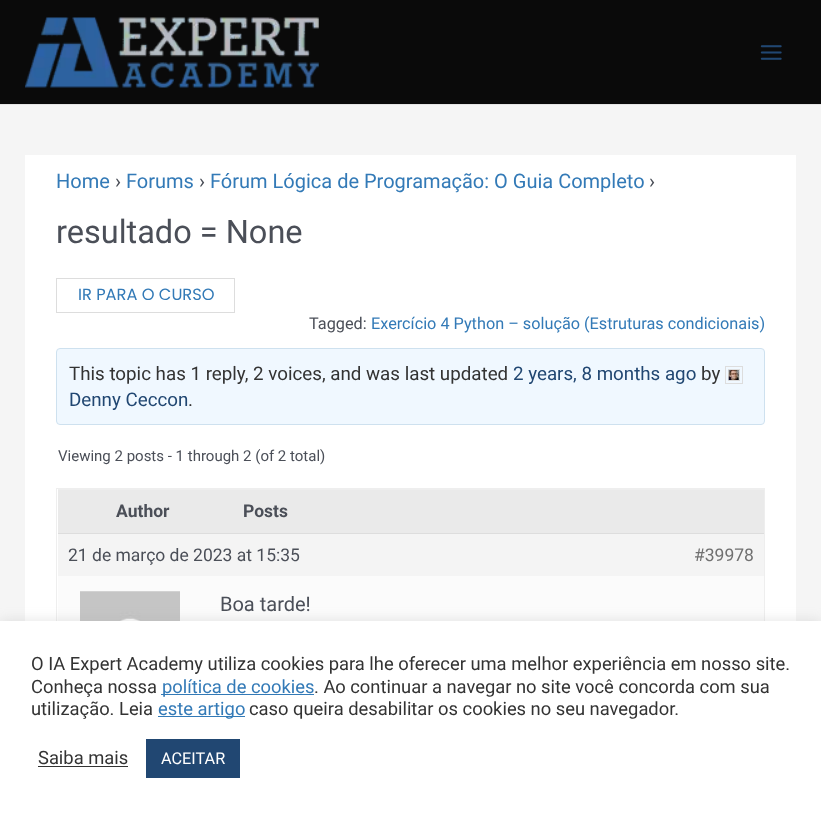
<svg xmlns="http://www.w3.org/2000/svg" width="821" height="815" viewBox="0 0 821 815">
  <style>
    .t1 { font: 20px Roboto; fill: #337ab7; }
    .t2 { font: 20px Roboto; fill: #4b4f58; }
    .t3 { font: 32.5px Roboto; fill: #4b4f58; }
    .t4 { font: 16.25px Poppins; fill: #337ab7; }
    .t5 { font: 16.25px Roboto; fill: #4b4f58; }
    .t6 { font: 16.25px Roboto; fill: #337ab7; }
    .t7 { font: 18.75px Roboto; fill: #333; }
    .t8 { font: 18.75px Roboto; fill: #214772; }
    .t9 { font: 15px Roboto; fill: #4b4f58; }
    .t10 { font: bold 17.5px Roboto; fill: #4b4f58; }
    .t11 { font: 17.5px Roboto; fill: #4b4f58; }
    .t12 { font: 17.5px Roboto; fill: #707070; }
    .t13 { font: 18.35px Roboto; fill: #333; }
    .t14 { font: 18.35px Roboto; fill: #337ab7; }
    .t15 { font: 16.25px Roboto; fill: #fff; }
  </style>
  <rect width="100%" height="100%" fill="#f5f5f5"/>
  <rect x="0" y="0" width="821" height="104" fill="#0a0a0a"/>
  <rect x="0" y="104" width="821" height="1" fill="#e5e5e5"/>
  <image x="25" y="17" width="294" height="71" href="images/1.png"/>
  <image x="760" y="45" width="22" height="15" href="images/2.png"/>
  <rect x="25" y="155" width="771" height="466" fill="#fff"/>
  <text x="56" y="188" class="t1">Home</text>
  <text x="115" y="188" class="t2">›</text>
  <text x="126" y="188" class="t1">Forums</text>
  <text x="199" y="188" class="t2">›</text>
  <text x="210" y="188" class="t1">Fórum Lógica de Programação: O Guia Completo</text>
  <text x="649" y="188" class="t2">›</text>
  <text x="56" y="243" class="t3">resultado = None</text>
  <rect x="56.5" y="278.5" width="178" height="34" fill="none" stroke="#ddd"/>
  <text x="78" y="300" class="t4">IR PARA O CURSO</text>
  <text x="309" y="329" class="t5">Tagged:</text>
  <text x="371" y="329" class="t6">Exercício 4 Python – solução (Estruturas condicionais)</text>
  <rect x="56.5" y="348.5" width="708" height="76" rx="3.5" fill="#f0f8ff" stroke="#cee1ef"/>
  <text x="69" y="380" class="t7">This topic has 1 reply, 2 voices, and was last updated</text>
  <text x="513" y="380" class="t8">2 years, 8 months ago</text>
  <text x="701" y="380" class="t7">by</text>
  <rect x="725.5" y="366.5" width="17" height="17" fill="none" stroke="#ddd"/>
  <rect x="728.5" y="369.5" width="11" height="11" fill="none" stroke="#ddd"/>
  <image x="728" y="370" width="11" height="10" href="images/3.png"/>
  <text x="69" y="406" class="t8">Denny Ceccon</text>
  <text x="188" y="406" class="t7">.</text>
  <text x="58" y="461" class="t9">Viewing 2 posts - 1 through 2 (of 2 total)</text>
  <rect x="56.5" y="488.5" width="708" height="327" fill="none" stroke="#eee"/>
  <rect x="58" y="490" width="706" height="43" fill="#eaeaea"/>
  <rect x="58" y="489" width="706" height="1" fill="#eee"/>
  <text x="116" y="517" class="t10">Author</text>
  <text x="243" y="517" class="t10">Posts</text>
  <rect x="58" y="534" width="706" height="42" fill="#f4f4f4"/>
  <rect x="58" y="533" width="706" height="1" fill="#ddd"/>
  <text x="68" y="561" class="t11">21 de março de 2023 at 15:35</text>
  <text x="694" y="561" class="t12">#39978</text>
  <rect x="58" y="576" width="706" height="45" fill="#fbfbfb"/>
  <image x="80" y="591" width="100" height="30" href="images/4.png"/>
  <text x="220" y="611" class="t2">Boa tarde!</text>
  <rect x="0" y="620" width="821" height="194" fill="#acabab4d" filter="blur(6px)"/>
  <rect x="0" y="621" width="821" height="194" fill="#fff"/>
  <text x="31" y="670" class="t13">O IA Expert Academy utiliza cookies para lhe oferecer uma melhor experiência em nosso site.</text>
  <text x="31" y="693" class="t13">Conheça nossa</text>
  <rect x="161" y="694" width="153" height="1" fill="#337ab7"/>
  <text x="162" y="693" class="t14">política de cookies</text>
  <text x="314" y="693" class="t13">. Ao continuar a navegar no site você concorda com sua</text>
  <text x="31" y="715" class="t13">utilização. Leia</text>
  <rect x="158" y="716" width="87" height="1" fill="#337ab7"/>
  <text x="158" y="715" class="t14">este artigo</text>
  <text x="249" y="715" class="t13">caso queira desabilitar os cookies no seu navegador.</text>
  <text x="38" y="764" class="t13">Saiba mais</text>
  <rect x="38" y="766" width="90" height="1" fill="#333"/>
  <rect x="146" y="739" width="94" height="39" fill="#214772"/>
  <text x="161" y="764" class="t15">ACEITAR</text>
</svg>
